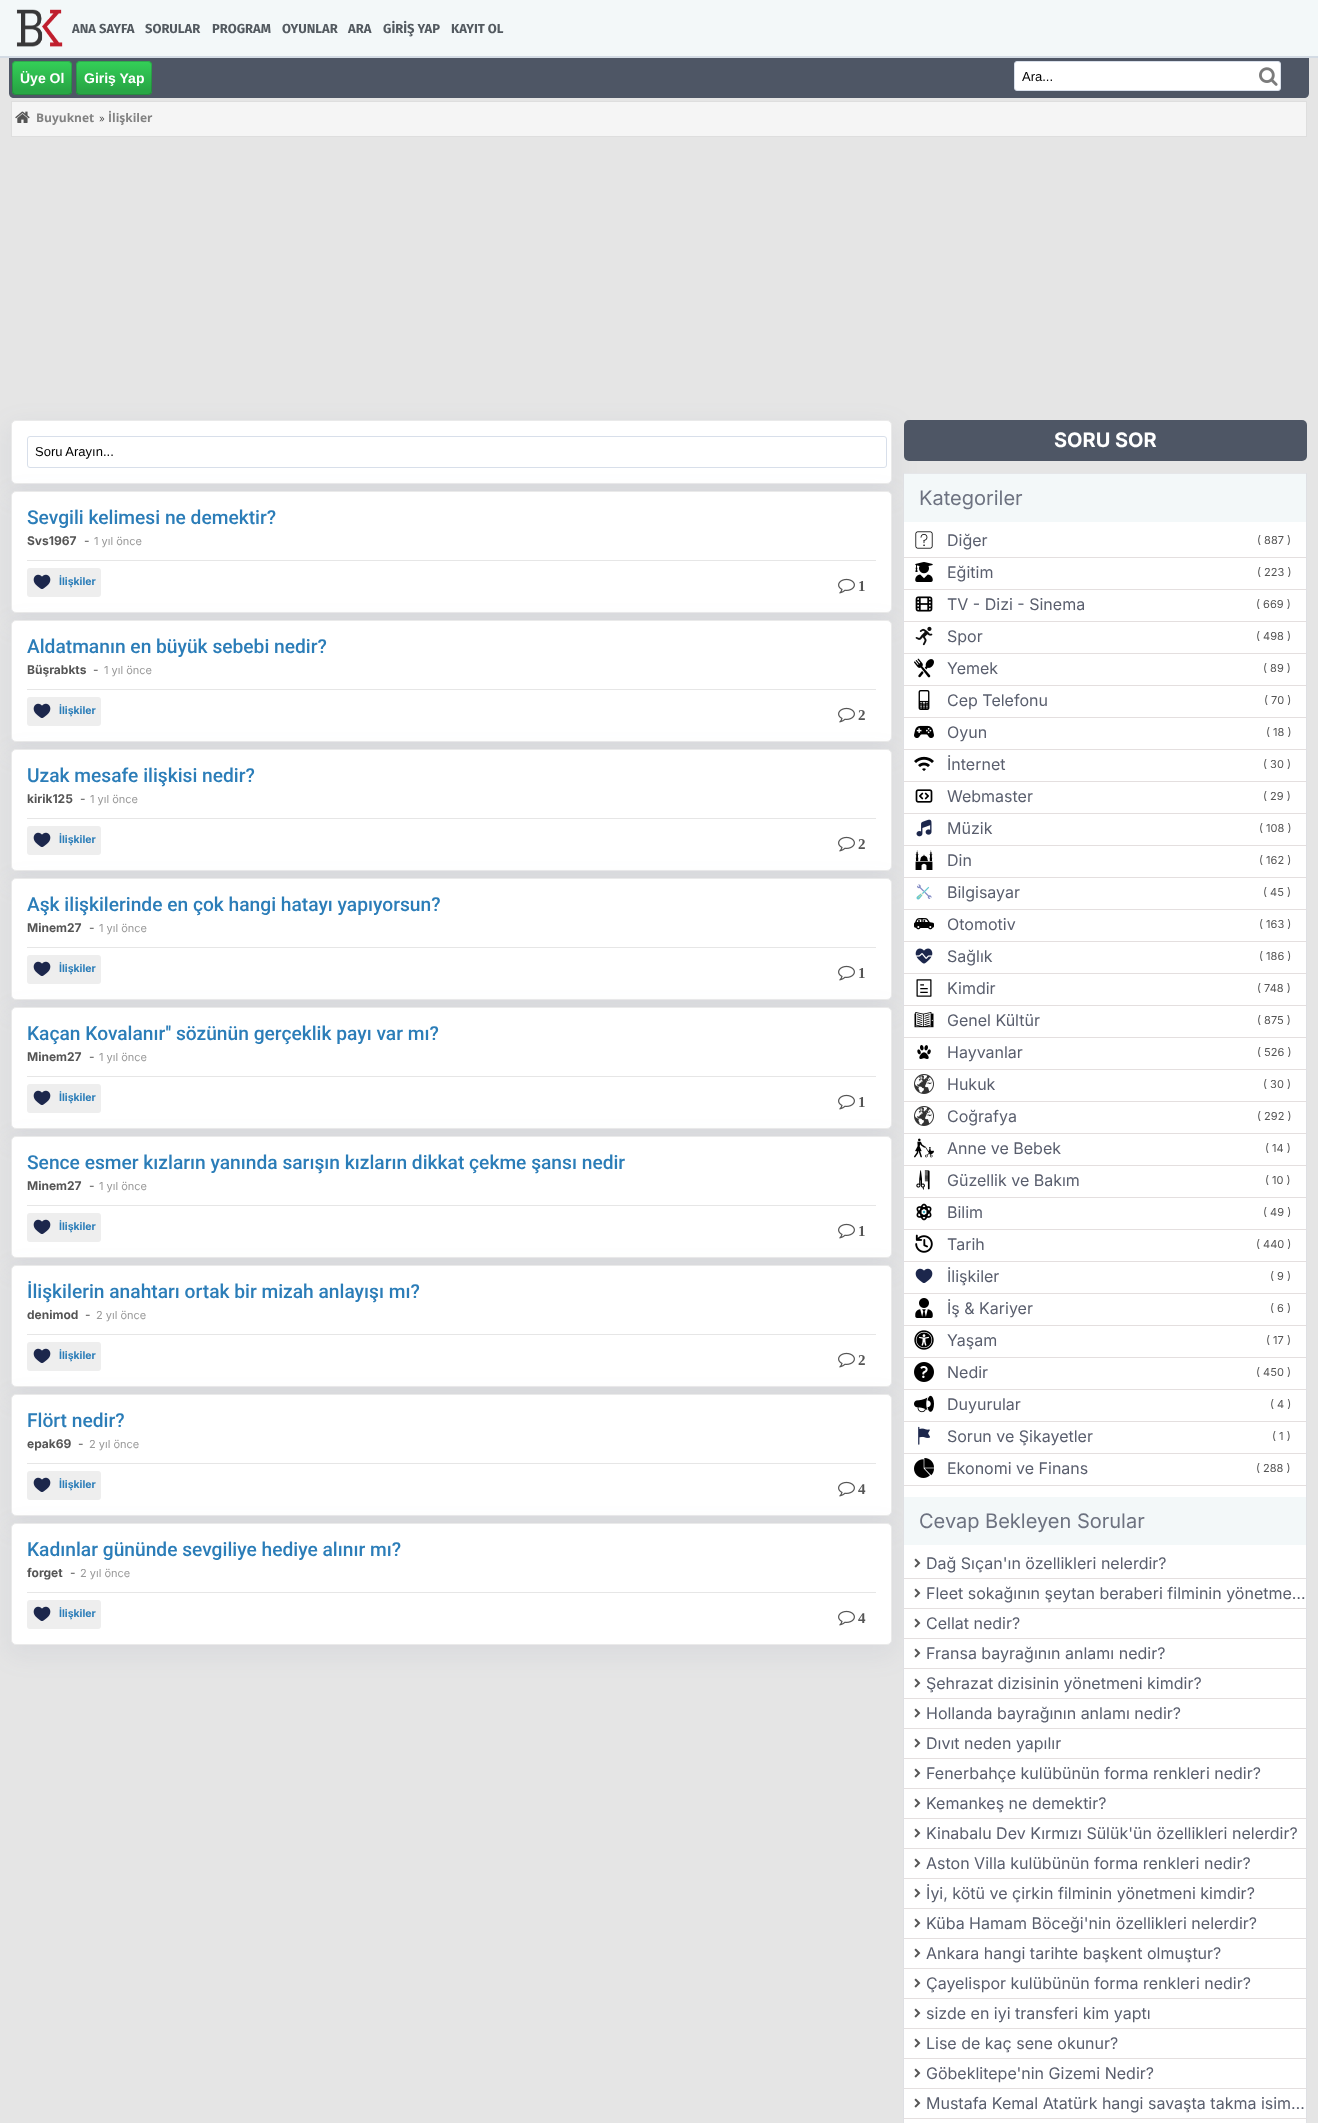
<svg xmlns="http://www.w3.org/2000/svg" width="1318" height="2123" viewBox="0 0 1318 2123">
  <style>
    .t1 { font: bold 13px Fira Sans; fill: #535a60; }
    .t2 { font: bold 14px Liberation Sans; fill: #fff; }
    .t3 { font: 13px Liberation Sans; fill: #000; }
    .t4 { font: bold 12px Open Sans; fill: #828282; }
    .t5 { font: 10px Inter; fill: #555; }
    .t6 { font: bold 20px Inter; fill: #fff; }
    .t7 { font: 500 19.2px Roboto; fill: #2b7db8; }
    .t8 { font: bold 12px Inter; fill: #555; }
    .t9 { font: 12px Inter; fill: #555; }
    .t10 { font: 11px Inter; fill: #999; }
    .t11 { font: bold 10.5px Inter; fill: #2b7db8; }
    .t12 { font: bold 15px Liberation Serif; fill: #555; }
    .t13 { font: 20px Inter; fill: #6d7280; }
    .t14 { font: 16px Inter; fill: #595e6d; }
    .t15 { font: 11px Inter; fill: #555; }
  </style>
  <defs>
    <clipPath id="clip1"><rect x="12" y="61" width="60" height="34" rx="4"/></clipPath>
    <linearGradient id="g1" gradientUnits="userSpaceOnUse" x1="41" y1="61" x2="41" y2="93"><stop offset="0" stop-color="#34d058"/><stop offset="0.9" stop-color="#28a745"/></linearGradient>
    <clipPath id="clip2"><rect x="76" y="61" width="76" height="34" rx="4"/></clipPath>
    <linearGradient id="g2" gradientUnits="userSpaceOnUse" x1="113" y1="61" x2="113" y2="93"><stop offset="0" stop-color="#34d058"/><stop offset="0.9" stop-color="#28a745"/></linearGradient>
  </defs>
  <rect width="100%" height="100%" fill="#e5e5e5"/>
  <rect x="0" y="0" width="1318" height="56" fill="#f3f8f9"/>
  <rect x="0" y="56" width="1318" height="2" fill="#d3dbe4"/>
  <image x="16" y="9" width="47" height="38" href="images/1.png"/>
  <text x="72" y="33" class="t1">ANA SAYFA</text>
  <text x="145" y="33" class="t1">SORULAR</text>
  <text x="212" y="33" class="t1">PROGRAM</text>
  <text x="282" y="33" class="t1">OYUNLAR</text>
  <text x="348" y="33" class="t1">ARA</text>
  <text x="383" y="33" class="t1">GİRİŞ YAP</text>
  <text x="451" y="33" class="t1">KAYIT OL</text>
  <path d="M9 58H1309V93C1309 96 1307 98 1304 98H14C11 98 9 96 9 93Z" fill="#4e5665"/>
  <rect x="12" y="61" width="60" height="34" rx="4" fill="#28a745"/>
  <g clip-path="url(#clip1)">
    <path d="M16 61H68C70 61 72 63 72 65V93H12V65C12 63 14 61 16 61Z" fill="url(#g1)"/>
  </g>
  <rect x="12.5" y="61.5" width="59" height="33" rx="3.5" fill="none" stroke="#1b1f2333"/>
  <text x="20" y="83" class="t2">Üye Ol</text>
  <rect x="76" y="61" width="76" height="34" rx="4" fill="#28a745"/>
  <g clip-path="url(#clip2)">
    <path d="M80 61H148C150 61 152 63 152 65V93H76V65C76 63 78 61 80 61Z" fill="url(#g2)"/>
  </g>
  <rect x="76.5" y="61.5" width="75" height="33" rx="3.5" fill="none" stroke="#1b1f2333"/>
  <text x="84" y="83" class="t2">Giriş Yap</text>
  <rect x="1014.5" y="61.5" width="266" height="29" rx="2.5" fill="#fff" stroke="#d8dfea"/>
  <text x="1022" y="81" class="t3">Ara...</text>
  <image x="1259" y="67" width="19" height="19" href="images/2.png"/>
  <rect x="11.5" y="101.5" width="1295" height="35" fill="#f5f5f5" stroke="#dedede"/>
  <image x="15" y="111" width="15" height="12" href="images/3.png"/>
  <text x="36" y="122" class="t4">Buyuknet</text>
  <text x="99" y="122" class="t5">»</text>
  <text x="108" y="122" class="t4">İlişkiler</text>
  <rect x="8" y="425" width="887" height="70" rx="8" fill="#54668614" filter="blur(12px)"/>
  <rect x="11.5" y="420.5" width="880" height="63" rx="4.5" fill="#fff" stroke="#eaeaea"/>
  <rect x="8" y="496" width="887" height="128" rx="8" fill="#54668614" filter="blur(12px)"/>
  <rect x="904" y="420" width="403" height="41" rx="5" fill="#4e5665"/>
  <text x="1054" y="447" class="t6">SORU SOR</text>
  <rect x="27.5" y="436.5" width="859" height="31" rx="2.5" fill="none" stroke="#d8dfea"/>
  <text x="35" y="456" class="t3">Soru Arayın...</text>
  <rect x="11.5" y="491.5" width="880" height="121" rx="4.5" fill="#fff" stroke="#eaeaea"/>
  <text x="27" y="524" class="t7">Sevgili kelimesi ne demektir?</text>
  <text x="27" y="545" class="t8">Svs1967</text>
  <text x="84" y="545" class="t9">-</text>
  <text x="94" y="545" class="t10">1 yıl önce</text>
  <rect x="27" y="560" width="849" height="1" fill="#e6e6e6"/>
  <rect x="8" y="625" width="887" height="128" rx="8" fill="#54668614" filter="blur(12px)"/>
  <rect x="27" y="568" width="74" height="29" rx="3" fill="#eee"/>
  <image x="33" y="574" width="18" height="15" href="images/4.png"/>
  <text x="59" y="585" class="t11">İlişkiler</text>
  <image x="838" y="578" width="17" height="16" href="images/5.png"/>
  <text x="858" y="591" class="t12">1</text>
  <rect x="11.5" y="620.5" width="880" height="121" rx="4.5" fill="#fff" stroke="#eaeaea"/>
  <text x="27" y="653" class="t7">Aldatmanın en büyük sebebi nedir?</text>
  <text x="27" y="674" class="t8">Büşrabkts</text>
  <text x="93" y="674" class="t9">-</text>
  <text x="104" y="674" class="t10">1 yıl önce</text>
  <rect x="27" y="689" width="849" height="1" fill="#e6e6e6"/>
  <rect x="8" y="754" width="887" height="128" rx="8" fill="#54668614" filter="blur(12px)"/>
  <rect x="27" y="697" width="74" height="29" rx="3" fill="#eee"/>
  <image x="33" y="703" width="18" height="15" href="images/4.png"/>
  <text x="59" y="714" class="t11">İlişkiler</text>
  <image x="838" y="707" width="17" height="16" href="images/5.png"/>
  <text x="858" y="720" class="t12">2</text>
  <rect x="11.5" y="749.5" width="880" height="121" rx="4.5" fill="#fff" stroke="#eaeaea"/>
  <text x="27" y="782" class="t7">Uzak mesafe ilişkisi nedir?</text>
  <text x="27" y="803" class="t8">kirik125</text>
  <text x="80" y="803" class="t9">-</text>
  <text x="90" y="803" class="t10">1 yıl önce</text>
  <rect x="27" y="818" width="849" height="1" fill="#e6e6e6"/>
  <rect x="8" y="883" width="887" height="128" rx="8" fill="#54668614" filter="blur(12px)"/>
  <rect x="27" y="826" width="74" height="29" rx="3" fill="#eee"/>
  <image x="33" y="832" width="18" height="15" href="images/4.png"/>
  <text x="59" y="843" class="t11">İlişkiler</text>
  <image x="838" y="836" width="17" height="16" href="images/5.png"/>
  <text x="858" y="849" class="t12">2</text>
  <rect x="11.5" y="878.5" width="880" height="121" rx="4.5" fill="#fff" stroke="#eaeaea"/>
  <text x="27" y="911" class="t7">Aşk ilişkilerinde en çok hangi hatayı yapıyorsun?</text>
  <text x="27" y="932" class="t8">Minem27</text>
  <text x="89" y="932" class="t9">-</text>
  <text x="99" y="932" class="t10">1 yıl önce</text>
  <rect x="27" y="947" width="849" height="1" fill="#e6e6e6"/>
  <rect x="8" y="1012" width="887" height="128" rx="8" fill="#54668614" filter="blur(12px)"/>
  <rect x="27" y="955" width="74" height="29" rx="3" fill="#eee"/>
  <image x="33" y="961" width="18" height="15" href="images/4.png"/>
  <text x="59" y="972" class="t11">İlişkiler</text>
  <image x="838" y="965" width="17" height="16" href="images/5.png"/>
  <text x="858" y="978" class="t12">1</text>
  <rect x="11.5" y="1007.5" width="880" height="121" rx="4.5" fill="#fff" stroke="#eaeaea"/>
  <text x="27" y="1040" class="t7">Kaçan Kovalanır'' sözünün gerçeklik payı var mı?</text>
  <text x="27" y="1061" class="t8">Minem27</text>
  <text x="89" y="1061" class="t9">-</text>
  <text x="99" y="1061" class="t10">1 yıl önce</text>
  <rect x="27" y="1076" width="849" height="1" fill="#e6e6e6"/>
  <rect x="8" y="1141" width="887" height="128" rx="8" fill="#54668614" filter="blur(12px)"/>
  <rect x="27" y="1084" width="74" height="29" rx="3" fill="#eee"/>
  <image x="33" y="1090" width="18" height="15" href="images/4.png"/>
  <text x="59" y="1101" class="t11">İlişkiler</text>
  <image x="838" y="1094" width="17" height="16" href="images/5.png"/>
  <text x="858" y="1107" class="t12">1</text>
  <rect x="11.5" y="1136.5" width="880" height="121" rx="4.5" fill="#fff" stroke="#eaeaea"/>
  <text x="27" y="1169" class="t7">Sence esmer kızların yanında sarışın kızların dikkat çekme şansı nedir</text>
  <text x="27" y="1190" class="t8">Minem27</text>
  <text x="89" y="1190" class="t9">-</text>
  <text x="99" y="1190" class="t10">1 yıl önce</text>
  <rect x="27" y="1205" width="849" height="1" fill="#e6e6e6"/>
  <rect x="8" y="1270" width="887" height="128" rx="8" fill="#54668614" filter="blur(12px)"/>
  <rect x="27" y="1213" width="74" height="29" rx="3" fill="#eee"/>
  <image x="33" y="1219" width="18" height="15" href="images/4.png"/>
  <text x="59" y="1230" class="t11">İlişkiler</text>
  <image x="838" y="1223" width="17" height="16" href="images/5.png"/>
  <text x="858" y="1236" class="t12">1</text>
  <rect x="11.5" y="1265.5" width="880" height="121" rx="4.5" fill="#fff" stroke="#eaeaea"/>
  <text x="27" y="1298" class="t7">İlişkilerin anahtarı ortak bir mizah anlayışı mı?</text>
  <text x="27" y="1319" class="t8">denimod</text>
  <text x="85" y="1319" class="t9">-</text>
  <text x="96" y="1319" class="t10">2 yıl önce</text>
  <rect x="27" y="1334" width="849" height="1" fill="#e6e6e6"/>
  <rect x="8" y="1399" width="887" height="128" rx="8" fill="#54668614" filter="blur(12px)"/>
  <rect x="27" y="1342" width="74" height="29" rx="3" fill="#eee"/>
  <image x="33" y="1348" width="18" height="15" href="images/4.png"/>
  <text x="59" y="1359" class="t11">İlişkiler</text>
  <image x="838" y="1352" width="17" height="16" href="images/5.png"/>
  <text x="858" y="1365" class="t12">2</text>
  <rect x="11.5" y="1394.5" width="880" height="121" rx="4.5" fill="#fff" stroke="#eaeaea"/>
  <text x="27" y="1427" class="t7">Flört nedir?</text>
  <text x="27" y="1448" class="t8">epak69</text>
  <text x="78" y="1448" class="t9">-</text>
  <text x="89" y="1448" class="t10">2 yıl önce</text>
  <rect x="27" y="1463" width="849" height="1" fill="#e6e6e6"/>
  <rect x="8" y="1528" width="887" height="128" rx="8" fill="#54668614" filter="blur(12px)"/>
  <rect x="27" y="1471" width="74" height="29" rx="3" fill="#eee"/>
  <image x="33" y="1477" width="18" height="15" href="images/4.png"/>
  <text x="59" y="1488" class="t11">İlişkiler</text>
  <image x="838" y="1481" width="17" height="16" href="images/5.png"/>
  <text x="858" y="1494" class="t12">4</text>
  <rect x="11.5" y="1523.5" width="880" height="121" rx="4.5" fill="#fff" stroke="#eaeaea"/>
  <text x="27" y="1556" class="t7">Kadınlar gününde sevgiliye hediye alınır mı?</text>
  <text x="27" y="1577" class="t8">forget</text>
  <text x="70" y="1577" class="t9">-</text>
  <text x="80" y="1577" class="t10">2 yıl önce</text>
  <rect x="27" y="1592" width="849" height="1" fill="#e6e6e6"/>
  <rect x="27" y="1600" width="74" height="29" rx="3" fill="#eee"/>
  <image x="33" y="1606" width="18" height="15" href="images/4.png"/>
  <text x="59" y="1617" class="t11">İlişkiler</text>
  <image x="838" y="1610" width="17" height="16" href="images/5.png"/>
  <text x="858" y="1623" class="t12">4</text>
  <rect x="904" y="522" width="402" height="1601" fill="#fff"/>
  <rect x="903" y="473" width="404" height="1" fill="#e5e6e9"/>
  <rect x="1306" y="473" width="1" height="1650" fill="#dfe0e4"/>
  <rect x="903" y="473" width="1" height="1650" fill="#dfe0e4"/>
  <rect x="904" y="474" width="402" height="48" fill="#f3f8f9"/>
  <text x="919" y="505" class="t13">Kategoriler</text>
  <rect x="904" y="557" width="402" height="1" fill="#e4dfdf"/>
  <image x="915" y="531" width="18" height="18" href="images/6.png"/>
  <text x="947" y="546" class="t14">Diğer</text>
  <text x="1257" y="544" class="t15">( 887 )</text>
  <rect x="904" y="589" width="402" height="1" fill="#e4dfdf"/>
  <image x="915" y="562" width="18" height="20" href="images/7.png"/>
  <text x="947" y="578" class="t14">Eğitim</text>
  <text x="1257" y="576" class="t15">( 223 )</text>
  <rect x="904" y="621" width="402" height="1" fill="#e4dfdf"/>
  <image x="915" y="596" width="18" height="16" href="images/8.png"/>
  <text x="947" y="610" class="t14">TV - Dizi - Sinema</text>
  <text x="1256" y="608" class="t15">( 669 )</text>
  <rect x="904" y="653" width="402" height="1" fill="#e4dfdf"/>
  <image x="915" y="626" width="18" height="20" href="images/9.png"/>
  <text x="947" y="642" class="t14">Spor</text>
  <text x="1256" y="640" class="t15">( 498 )</text>
  <rect x="904" y="685" width="402" height="1" fill="#e4dfdf"/>
  <image x="914" y="658" width="20" height="20" href="images/10.png"/>
  <text x="947" y="674" class="t14">Yemek</text>
  <text x="1263" y="672" class="t15">( 89 )</text>
  <rect x="904" y="717" width="402" height="1" fill="#e4dfdf"/>
  <image x="918" y="690" width="12" height="20" href="images/11.png"/>
  <text x="947" y="706" class="t14">Cep Telefonu</text>
  <text x="1264" y="704" class="t15">( 70 )</text>
  <rect x="904" y="749" width="402" height="1" fill="#e4dfdf"/>
  <image x="914" y="725" width="20" height="13" href="images/12.png"/>
  <text x="947" y="738" class="t14">Oyun</text>
  <text x="1266" y="736" class="t15">( 18 )</text>
  <rect x="904" y="781" width="402" height="1" fill="#e4dfdf"/>
  <image x="914" y="756" width="20" height="15" href="images/13.png"/>
  <text x="947" y="770" class="t14">İnternet</text>
  <text x="1263" y="768" class="t15">( 30 )</text>
  <rect x="904" y="813" width="402" height="1" fill="#e4dfdf"/>
  <image x="915" y="789" width="18" height="14" href="images/14.png"/>
  <text x="947" y="802" class="t14">Webmaster</text>
  <text x="1263" y="800" class="t15">( 29 )</text>
  <rect x="904" y="845" width="402" height="1" fill="#e4dfdf"/>
  <image x="916" y="819" width="16" height="18" href="images/15.png"/>
  <text x="947" y="834" class="t14">Müzik</text>
  <text x="1259" y="832" class="t15">( 108 )</text>
  <rect x="904" y="877" width="402" height="1" fill="#e4dfdf"/>
  <image x="915" y="850" width="18" height="20" href="images/16.png"/>
  <text x="947" y="866" class="t14">Din</text>
  <text x="1259" y="864" class="t15">( 162 )</text>
  <rect x="904" y="909" width="402" height="1" fill="#e4dfdf"/>
  <image x="916" y="884" width="16" height="16" href="images/17.png"/>
  <text x="947" y="898" class="t14">Bilgisayar</text>
  <text x="1263" y="896" class="t15">( 45 )</text>
  <rect x="904" y="941" width="402" height="1" fill="#e4dfdf"/>
  <image x="914" y="918" width="20" height="12" href="images/18.png"/>
  <text x="947" y="930" class="t14">Otomotiv</text>
  <text x="1259" y="928" class="t15">( 163 )</text>
  <rect x="904" y="973" width="402" height="1" fill="#e4dfdf"/>
  <image x="915" y="948" width="18" height="16" href="images/19.png"/>
  <text x="947" y="962" class="t14">Sağlık</text>
  <text x="1259" y="960" class="t15">( 186 )</text>
  <rect x="904" y="1005" width="402" height="1" fill="#e4dfdf"/>
  <image x="916" y="979" width="16" height="18" href="images/20.png"/>
  <text x="947" y="994" class="t14">Kimdir</text>
  <text x="1257" y="992" class="t15">( 748 )</text>
  <rect x="904" y="1037" width="402" height="1" fill="#e4dfdf"/>
  <image x="914" y="1012" width="20" height="16" href="images/21.png"/>
  <text x="947" y="1026" class="t14">Genel Kültür</text>
  <text x="1257" y="1024" class="t15">( 875 )</text>
  <rect x="904" y="1069" width="402" height="1" fill="#e4dfdf"/>
  <image x="917" y="1045" width="14" height="14" href="images/22.png"/>
  <text x="947" y="1058" class="t14">Hayvanlar</text>
  <text x="1257" y="1056" class="t15">( 526 )</text>
  <rect x="904" y="1101" width="402" height="1" fill="#e4dfdf"/>
  <image x="914" y="1074" width="20" height="20" href="images/23.png"/>
  <text x="947" y="1090" class="t14">Hukuk</text>
  <text x="1263" y="1088" class="t15">( 30 )</text>
  <rect x="904" y="1133" width="402" height="1" fill="#e4dfdf"/>
  <image x="914" y="1106" width="20" height="20" href="images/23.png"/>
  <text x="947" y="1122" class="t14">Coğrafya</text>
  <text x="1257" y="1120" class="t15">( 292 )</text>
  <rect x="904" y="1165" width="402" height="1" fill="#e4dfdf"/>
  <image x="914" y="1138" width="20" height="20" href="images/24.png"/>
  <text x="947" y="1154" class="t14">Anne ve Bebek</text>
  <text x="1265" y="1152" class="t15">( 14 )</text>
  <rect x="904" y="1197" width="402" height="1" fill="#e4dfdf"/>
  <image x="916" y="1170" width="14" height="20" href="images/25.png"/>
  <text x="947" y="1186" class="t14">Güzellik ve Bakım</text>
  <text x="1265" y="1184" class="t15">( 10 )</text>
  <rect x="904" y="1229" width="402" height="1" fill="#e4dfdf"/>
  <image x="916" y="1203" width="16" height="18" href="images/26.png"/>
  <text x="947" y="1218" class="t14">Bilim</text>
  <text x="1263" y="1216" class="t15">( 49 )</text>
  <rect x="904" y="1261" width="402" height="1" fill="#e4dfdf"/>
  <image x="915" y="1234" width="18" height="19" href="images/27.png"/>
  <text x="947" y="1250" class="t14">Tarih</text>
  <text x="1256" y="1248" class="t15">( 440 )</text>
  <rect x="904" y="1293" width="402" height="1" fill="#e4dfdf"/>
  <image x="915" y="1268" width="18" height="15" href="images/28.png"/>
  <text x="947" y="1282" class="t14">İlişkiler</text>
  <text x="1270" y="1280" class="t15">( 9 )</text>
  <rect x="904" y="1325" width="402" height="1" fill="#e4dfdf"/>
  <image x="915" y="1298" width="18" height="20" href="images/29.png"/>
  <text x="947" y="1314" class="t14">İş &amp; Kariyer</text>
  <text x="1270" y="1312" class="t15">( 6 )</text>
  <rect x="904" y="1357" width="402" height="1" fill="#e4dfdf"/>
  <image x="914" y="1330" width="20" height="20" href="images/30.png"/>
  <text x="947" y="1346" class="t14">Yaşam</text>
  <text x="1266" y="1344" class="t15">( 17 )</text>
  <rect x="904" y="1389" width="402" height="1" fill="#e4dfdf"/>
  <image x="914" y="1362" width="20" height="20" href="images/31.png"/>
  <text x="947" y="1378" class="t14">Nedir</text>
  <text x="1256" y="1376" class="t15">( 450 )</text>
  <rect x="904" y="1421" width="402" height="1" fill="#e4dfdf"/>
  <image x="914" y="1395" width="20" height="18" href="images/32.png"/>
  <text x="947" y="1410" class="t14">Duyurular</text>
  <text x="1270" y="1408" class="t15">( 4 )</text>
  <rect x="904" y="1453" width="402" height="1" fill="#e4dfdf"/>
  <image x="918" y="1426" width="12" height="19" href="images/33.png"/>
  <text x="947" y="1442" class="t14">Sorun ve Şikayetler</text>
  <text x="1272" y="1440" class="t15">( 1 )</text>
  <rect x="904" y="1485" width="402" height="1" fill="#e4dfdf"/>
  <image x="914" y="1458" width="20" height="20" href="images/34.png"/>
  <text x="947" y="1474" class="t14">Ekonomi ve Finans</text>
  <text x="1256" y="1472" class="t15">( 288 )</text>
  <rect x="904" y="1497" width="402" height="48" fill="#f3f8f9"/>
  <text x="919" y="1528" class="t13">Cevap Bekleyen Sorular</text>
  <rect x="904" y="1578" width="402" height="1" fill="#e4dfdf"/>
  <image x="914" y="1558" width="7" height="10" href="images/35.png"/>
  <text x="926" y="1569" class="t14">Dağ Sıçan'ın özellikleri nelerdir?</text>
  <rect x="904" y="1608" width="402" height="1" fill="#e4dfdf"/>
  <image x="914" y="1588" width="7" height="10" href="images/35.png"/>
  <text x="926" y="1599" class="t14">Fleet sokağının şeytan beraberi filminin yönetme…</text>
  <rect x="904" y="1638" width="402" height="1" fill="#e4dfdf"/>
  <image x="914" y="1618" width="7" height="10" href="images/35.png"/>
  <text x="926" y="1629" class="t14">Cellat nedir?</text>
  <rect x="904" y="1668" width="402" height="1" fill="#e4dfdf"/>
  <image x="914" y="1648" width="7" height="10" href="images/35.png"/>
  <text x="926" y="1659" class="t14">Fransa bayrağının anlamı nedir?</text>
  <rect x="904" y="1698" width="402" height="1" fill="#e4dfdf"/>
  <image x="914" y="1678" width="7" height="10" href="images/35.png"/>
  <text x="926" y="1689" class="t14">Şehrazat dizisinin yönetmeni kimdir?</text>
  <rect x="904" y="1728" width="402" height="1" fill="#e4dfdf"/>
  <image x="914" y="1708" width="7" height="10" href="images/35.png"/>
  <text x="926" y="1719" class="t14">Hollanda bayrağının anlamı nedir?</text>
  <rect x="904" y="1758" width="402" height="1" fill="#e4dfdf"/>
  <image x="914" y="1738" width="7" height="10" href="images/35.png"/>
  <text x="926" y="1749" class="t14">Dıvıt neden yapılır</text>
  <rect x="904" y="1788" width="402" height="1" fill="#e4dfdf"/>
  <image x="914" y="1768" width="7" height="10" href="images/35.png"/>
  <text x="926" y="1779" class="t14">Fenerbahçe kulübünün forma renkleri nedir?</text>
  <rect x="904" y="1818" width="402" height="1" fill="#e4dfdf"/>
  <image x="914" y="1798" width="7" height="10" href="images/35.png"/>
  <text x="926" y="1809" class="t14">Kemankeş ne demektir?</text>
  <rect x="904" y="1848" width="402" height="1" fill="#e4dfdf"/>
  <image x="914" y="1828" width="7" height="10" href="images/35.png"/>
  <text x="926" y="1839" class="t14">Kinabalu Dev Kırmızı Sülük'ün özellikleri nelerdir?</text>
  <rect x="904" y="1878" width="402" height="1" fill="#e4dfdf"/>
  <image x="914" y="1858" width="7" height="10" href="images/35.png"/>
  <text x="926" y="1869" class="t14">Aston Villa kulübünün forma renkleri nedir?</text>
  <rect x="904" y="1908" width="402" height="1" fill="#e4dfdf"/>
  <image x="914" y="1888" width="7" height="10" href="images/35.png"/>
  <text x="926" y="1899" class="t14">İyi, kötü ve çirkin filminin yönetmeni kimdir?</text>
  <rect x="904" y="1938" width="402" height="1" fill="#e4dfdf"/>
  <image x="914" y="1918" width="7" height="10" href="images/35.png"/>
  <text x="926" y="1929" class="t14">Küba Hamam Böceği'nin özellikleri nelerdir?</text>
  <rect x="904" y="1968" width="402" height="1" fill="#e4dfdf"/>
  <image x="914" y="1948" width="7" height="10" href="images/35.png"/>
  <text x="926" y="1959" class="t14">Ankara hangi tarihte başkent olmuştur?</text>
  <rect x="904" y="1998" width="402" height="1" fill="#e4dfdf"/>
  <image x="914" y="1978" width="7" height="10" href="images/35.png"/>
  <text x="926" y="1989" class="t14">Çayelispor kulübünün forma renkleri nedir?</text>
  <rect x="904" y="2028" width="402" height="1" fill="#e4dfdf"/>
  <image x="914" y="2008" width="7" height="10" href="images/35.png"/>
  <text x="926" y="2019" class="t14">sizde en iyi transferi kim yaptı</text>
  <rect x="904" y="2058" width="402" height="1" fill="#e4dfdf"/>
  <image x="914" y="2038" width="7" height="10" href="images/35.png"/>
  <text x="926" y="2049" class="t14">Lise de kaç sene okunur?</text>
  <rect x="904" y="2088" width="402" height="1" fill="#e4dfdf"/>
  <image x="914" y="2068" width="7" height="10" href="images/35.png"/>
  <text x="926" y="2079" class="t14">Göbeklitepe'nin Gizemi Nedir?</text>
  <rect x="904" y="2118" width="402" height="1" fill="#e4dfdf"/>
  <image x="914" y="2098" width="7" height="10" href="images/35.png"/>
  <text x="926" y="2109" class="t14">Mustafa Kemal Atatürk hangi savaşta takma isim…</text>
</svg>
